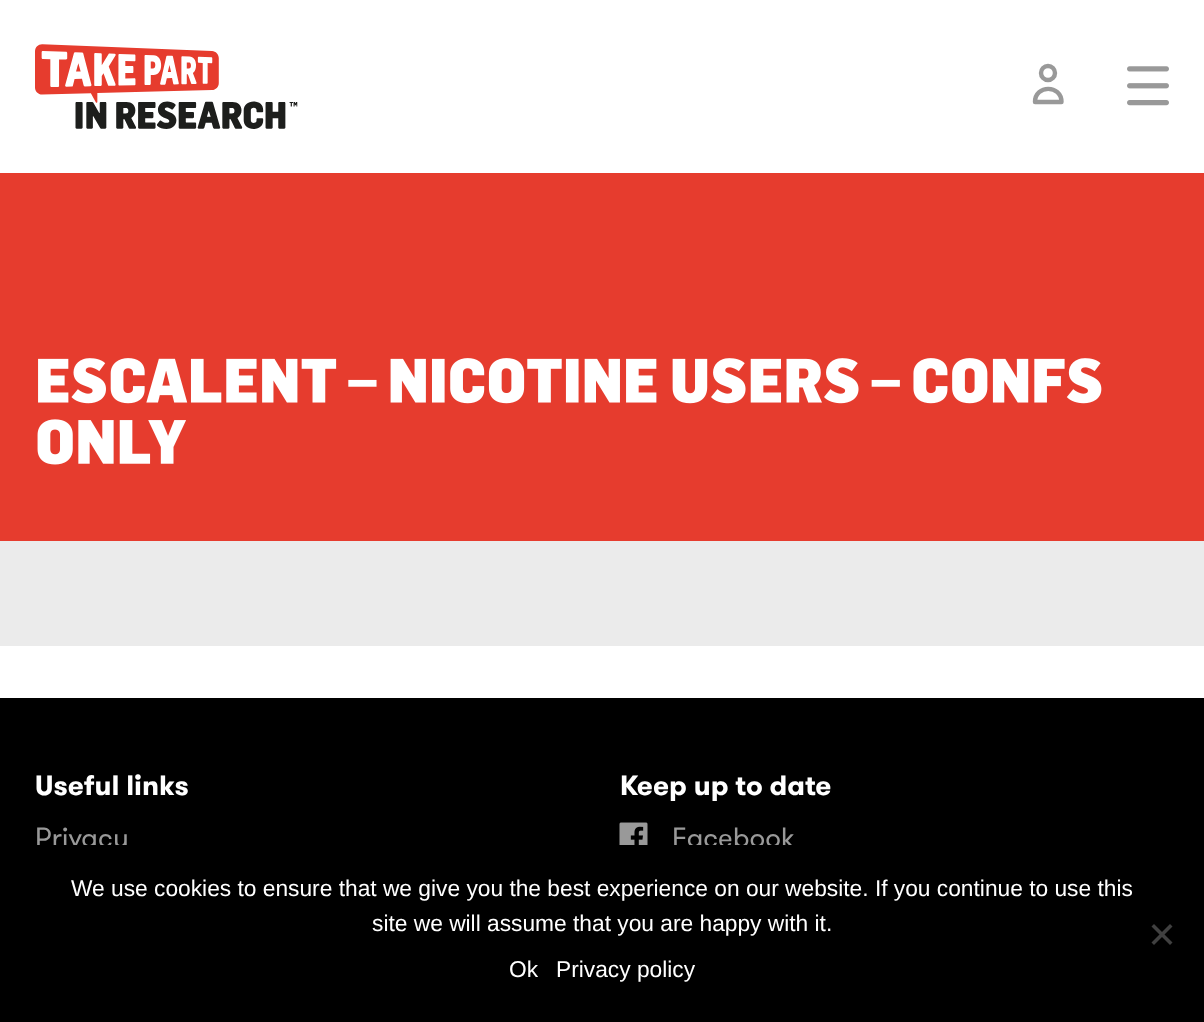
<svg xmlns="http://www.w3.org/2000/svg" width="1204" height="1022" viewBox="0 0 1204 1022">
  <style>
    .t1 { font: bold 28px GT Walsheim; fill: #fff; }
    .t2 { font: 28px GT Walsheim; fill: #999; }
    .t3 { font: 22.75px Liberation Sans; fill: #fff; }
  </style>
  <rect width="100%" height="100%" fill="#fff"/>
  <image x="35" y="44" width="263" height="85" href="images/1.png"/>
  <circle cx="1048" cy="73" r="7" fill="none" stroke="#999" stroke-width="4.4"/>
  <path d="M1035 102C1035 84.5 1061.5 84.5 1061.5 102Z" fill="none" stroke="#999" stroke-width="4.4" stroke-linecap="round" stroke-linejoin="round"/>
  <image x="1127" y="66" width="42" height="40" href="images/2.png"/>
  <rect x="0" y="173" width="1204" height="368" fill="#e63c2e"/>
  <image x="38" y="358" width="1064" height="46" href="images/3.png"/>
  <image x="37" y="419" width="149" height="46" href="images/4.png"/>
  <rect x="0" y="541" width="1204" height="105" fill="#ebebeb"/>
  <rect x="0" y="698" width="1204" height="147" fill="#000"/>
  <text x="35" y="795" class="t1">Useful links</text>
  <text x="35" y="847" class="t2">Privacy</text>
  <text x="620" y="795" class="t1">Keep up to date</text>
  <image x="619" y="822" width="29" height="23" href="images/5.png"/>
  <text x="672" y="847" class="t2">Facebook</text>
  <rect x="0" y="845" width="1204" height="177" fill="#000"/>
  <text x="71" y="896" class="t3">We use cookies to ensure that we give you the best experience on our website. If you continue to use this</text>
  <text x="372" y="931" class="t3">site we will assume that you are happy with it.</text>
  <path d="M1170 924L1172.5 926.5L1154 945L1151.5 942.5Z" fill="#404040"/>
  <path d="M1151.5 926.5L1154 924L1172.5 942.5L1170 945Z" fill="#404040"/>
  <text x="509" y="977" class="t3">Ok</text>
  <text x="556" y="977" class="t3">Privacy policy</text>
</svg>
